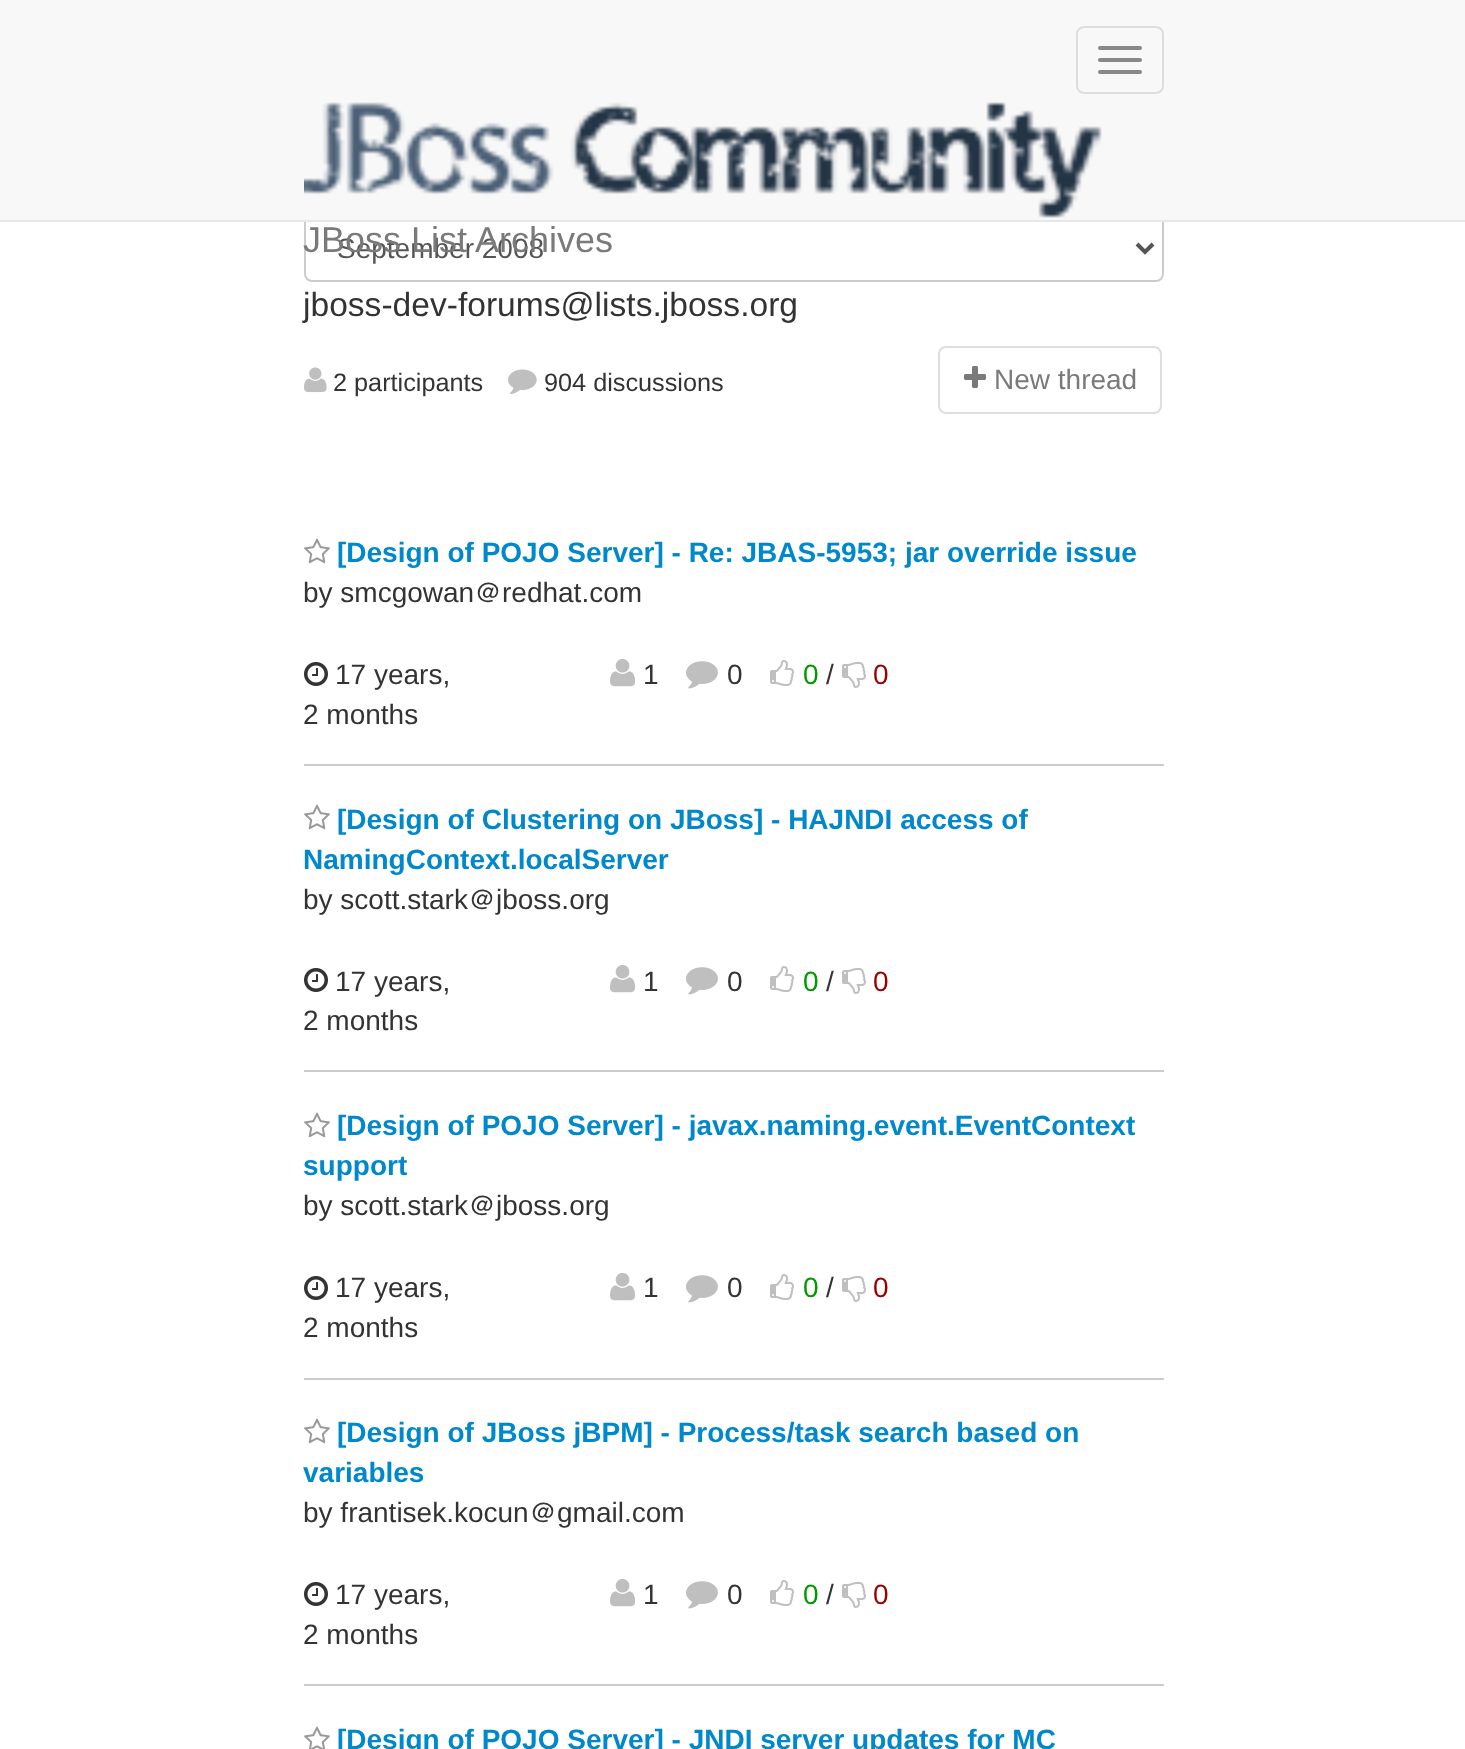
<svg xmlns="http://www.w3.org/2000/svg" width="1465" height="1749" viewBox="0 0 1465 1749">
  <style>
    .t1 { font: 28px Liberation Sans; fill: #555; }
    .t2 { font: 36px Liberation Sans; fill: #7a7a7a; }
    .t3 { font: 33.6px Liberation Sans; fill: #333; }
    .t4 { font: 25.25px Liberation Sans; fill: #333; }
    .t5 { font: 28px Liberation Sans; fill: #7a7a7a; }
    .t6 { font: bold 28px Liberation Sans; fill: #08c; }
    .t7 { font: 28px Liberation Sans; fill: #333; }
    .t8 { font: 500 28px WenQuanYi Zen Hei; fill: #333; }
    .t9 { font: 28px Liberation Sans; fill: #090; }
    .t10 { font: 28px Liberation Sans; fill: #900; }
  </style>
  <rect width="100%" height="100%" fill="#fff"/>
  <rect x="305" y="215" width="858" height="66" rx="7" fill="none" stroke="#ccc" stroke-width="2"/>
  <rect x="0" y="0" width="1465" height="220" fill="#f8f8f8"/>
  <rect x="0" y="220" width="1465" height="2" fill="#e7e7e7"/>
  <rect x="1077" y="27" width="86" height="66" rx="7" fill="none" stroke="#ddd" stroke-width="2"/>
  <rect x="1098" y="46" width="44" height="4" rx="2" fill="#888"/>
  <rect x="1098" y="58" width="44" height="4" rx="2" fill="#888"/>
  <rect x="1098" y="70" width="44" height="4" rx="2" fill="#888"/>
  <image x="304" y="102" width="798" height="116" href="images/1.png"/>
  <text x="337" y="258" class="t1">September 2008</text>
  <text x="303" y="252" class="t2">JBoss List Archives</text>
  <path d="M1137 244L1145 252L1153 244" fill="none" stroke="#555" stroke-width="4"/>
  <text x="303" y="316" class="t3">jboss-dev-forums@lists.jboss.org</text>
  <image x="304" y="367" width="23" height="26" href="images/2.png"/>
  <text x="333" y="391" class="t4">2 participants</text>
  <image x="508" y="369" width="29" height="25" href="images/3.png"/>
  <text x="544" y="391" class="t4">904 discussions</text>
  <rect x="939" y="347" width="222" height="66" rx="7" fill="none" stroke="#dedede" stroke-width="2"/>
  <image x="964" y="366" width="22" height="22" href="images/4.png"/>
  <text x="994" y="389" class="t5">New thread</text>
  <rect x="304" y="764" width="860" height="2" fill="#ccc"/>
  <image x="304" y="538" width="26" height="26" href="images/5.png"/>
  <text x="337" y="562" class="t6">[Design of POJO Server] - Re: JBAS-5953; jar override issue</text>
  <text x="303" y="602" class="t7">by smcgowan</text>
  <text x="474" y="602" class="t8">＠</text>
  <text x="502" y="602" class="t7">redhat.com</text>
  <image x="304" y="662" width="24" height="24" href="images/6.png"/>
  <text x="335" y="684" class="t7">17 years,</text>
  <text x="303" y="724" class="t7">2 months</text>
  <image x="610" y="658" width="26" height="29" href="images/7.png"/>
  <text x="643" y="684" class="t7">1</text>
  <image x="686" y="661" width="32" height="28" href="images/8.png"/>
  <text x="727" y="684" class="t7">0</text>
  <image x="770" y="660" width="24" height="26" href="images/9.png"/>
  <text x="803" y="684" class="t9">0</text>
  <text x="826" y="684" class="t7">/</text>
  <image x="842" y="662" width="24" height="26" href="images/10.png"/>
  <text x="873" y="684" class="t10">0</text>
  <rect x="304" y="1070" width="860" height="2" fill="#ccc"/>
  <image x="304" y="804" width="26" height="26" href="images/5.png"/>
  <text x="337" y="829" class="t6">[Design of Clustering on JBoss] - HAJNDI access of</text>
  <text x="303" y="869" class="t6">NamingContext.localServer</text>
  <text x="303" y="909" class="t7">by scott.stark</text>
  <text x="468" y="909" class="t8">＠</text>
  <text x="496" y="909" class="t7">jboss.org</text>
  <image x="304" y="968" width="24" height="24" href="images/6.png"/>
  <text x="335" y="991" class="t7">17 years,</text>
  <text x="303" y="1030" class="t7">2 months</text>
  <image x="610" y="964" width="26" height="29" href="images/7.png"/>
  <text x="643" y="991" class="t7">1</text>
  <image x="686" y="967" width="32" height="28" href="images/8.png"/>
  <text x="727" y="991" class="t7">0</text>
  <image x="770" y="966" width="24" height="26" href="images/9.png"/>
  <text x="803" y="991" class="t9">0</text>
  <text x="826" y="991" class="t7">/</text>
  <image x="842" y="968" width="24" height="26" href="images/10.png"/>
  <text x="873" y="991" class="t10">0</text>
  <rect x="304" y="1378" width="860" height="2" fill="#ccc"/>
  <image x="304" y="1112" width="26" height="26" href="images/5.png"/>
  <text x="337" y="1135" class="t6">[Design of POJO Server] - javax.naming.event.EventContext</text>
  <text x="303" y="1175" class="t6">support</text>
  <text x="303" y="1215" class="t7">by scott.stark</text>
  <text x="468" y="1215" class="t8">＠</text>
  <text x="496" y="1215" class="t7">jboss.org</text>
  <image x="304" y="1276" width="24" height="24" href="images/6.png"/>
  <text x="335" y="1297" class="t7">17 years,</text>
  <text x="303" y="1337" class="t7">2 months</text>
  <image x="610" y="1272" width="26" height="29" href="images/7.png"/>
  <text x="643" y="1297" class="t7">1</text>
  <image x="686" y="1275" width="32" height="28" href="images/8.png"/>
  <text x="727" y="1297" class="t7">0</text>
  <image x="770" y="1274" width="24" height="26" href="images/9.png"/>
  <text x="803" y="1297" class="t9">0</text>
  <text x="826" y="1297" class="t7">/</text>
  <image x="842" y="1276" width="24" height="26" href="images/10.png"/>
  <text x="873" y="1297" class="t10">0</text>
  <rect x="304" y="1684" width="860" height="2" fill="#ccc"/>
  <image x="304" y="1418" width="26" height="26" href="images/5.png"/>
  <text x="337" y="1442" class="t6">[Design of JBoss jBPM] - Process/task search based on</text>
  <text x="303" y="1482" class="t6">variables</text>
  <text x="303" y="1522" class="t7">by frantisek.kocun</text>
  <text x="529" y="1522" class="t8">＠</text>
  <text x="557" y="1522" class="t7">gmail.com</text>
  <image x="304" y="1582" width="24" height="24" href="images/6.png"/>
  <text x="335" y="1604" class="t7">17 years,</text>
  <text x="303" y="1644" class="t7">2 months</text>
  <image x="610" y="1578" width="26" height="29" href="images/7.png"/>
  <text x="643" y="1604" class="t7">1</text>
  <image x="686" y="1581" width="32" height="28" href="images/8.png"/>
  <text x="727" y="1604" class="t7">0</text>
  <image x="770" y="1580" width="24" height="26" href="images/9.png"/>
  <text x="803" y="1604" class="t9">0</text>
  <text x="826" y="1604" class="t7">/</text>
  <image x="842" y="1582" width="24" height="26" href="images/10.png"/>
  <text x="873" y="1604" class="t10">0</text>
  <image x="304" y="1726" width="26" height="23" href="images/11.png"/>
  <text x="337" y="1749" class="t6">[Design of POJO Server] - JNDI server updates for MC</text>
</svg>
